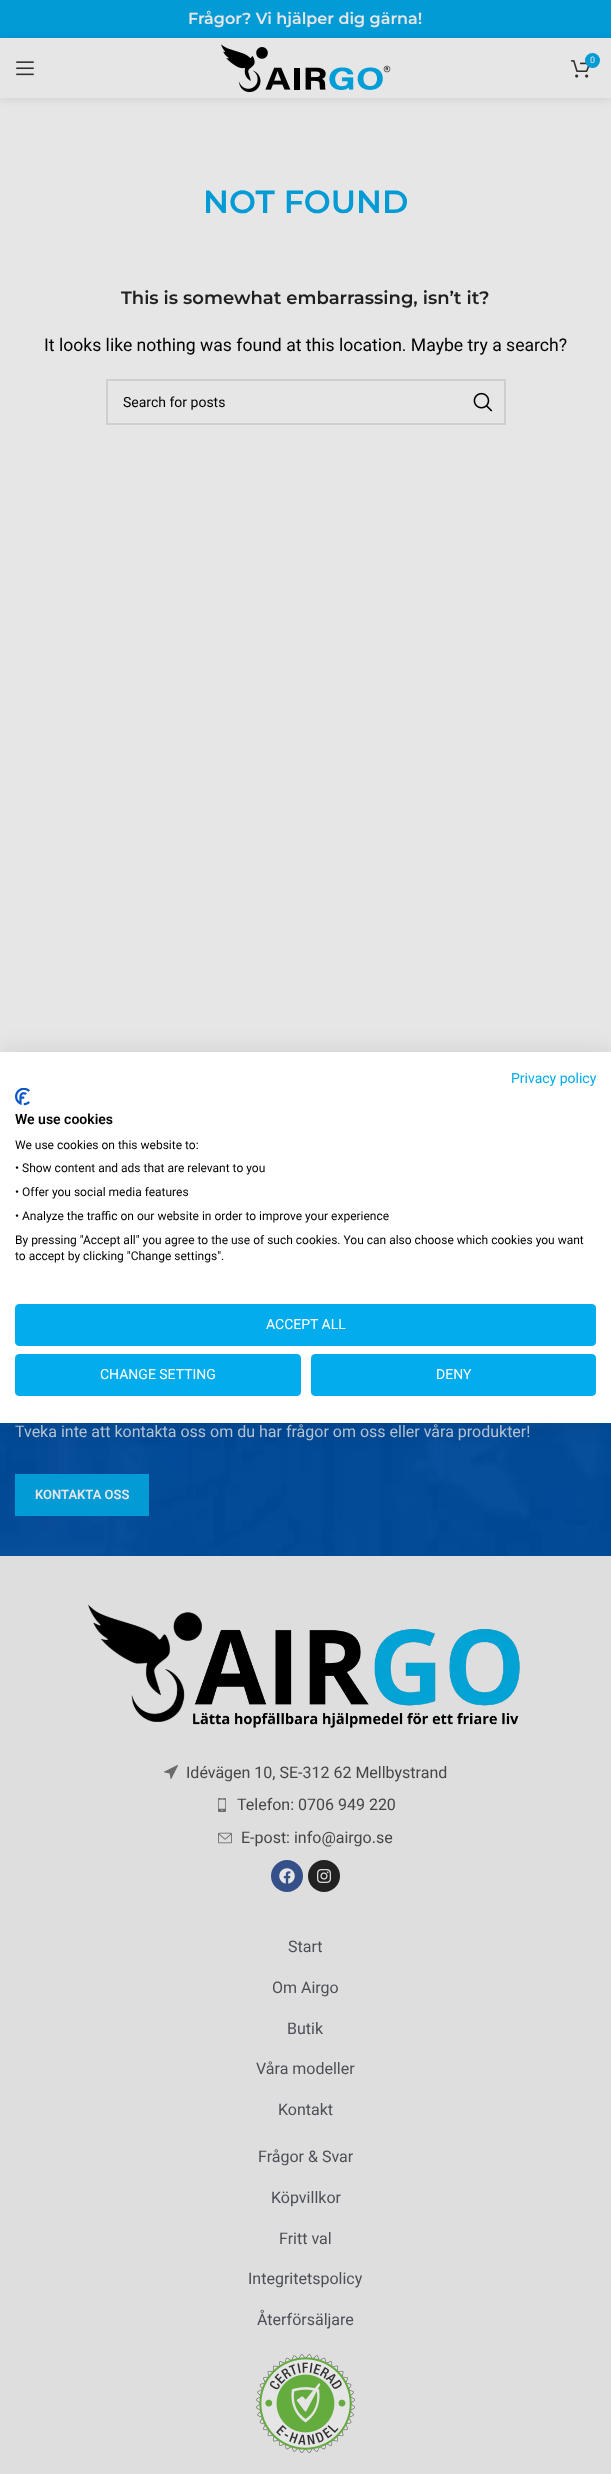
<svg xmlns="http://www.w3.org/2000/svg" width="611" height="2474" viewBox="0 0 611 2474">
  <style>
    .t1 { font: 600 16px Montserrat; fill: #e6e6e6; }
    .t2 { font: 9px Roboto; fill: #e6e6e6; }
    .t3 { font: 600 32px Montserrat; fill: #039bd5; }
    .t4 { font: 600 18px Montserrat; fill: #202020; }
    .t5 { font: 17.6px Roboto; fill: #000; }
    .t6 { font: 14px Roboto; fill: #000; }
    .t7 { font: 16px Roboto; fill: #b9c7d6; }
    .t8 { font: 600 13px Roboto; fill: #e6e6e6; }
    .t9 { font: 16px Roboto; fill: #464646; }
    .t10 { font: 16px Roboto; fill: #4c5056; }
    .t11 { font: 14px Roboto; fill: #03aced; }
    .t12 { font: 600 14px Roboto; fill: #000; }
    .t13 { font: 12px Roboto; fill: #000; }
    .t14 { font: 14px Roboto; fill: #fff; }
  </style>
  <defs>
    <clipPath id="clip1"><path d="M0 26H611V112H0ZM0 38H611V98H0Z" clip-rule="evenodd"/></clipPath>
  </defs>
  <rect width="100%" height="100%" fill="#e6e6e6"/>
  <rect x="0" y="0" width="611" height="38" fill="#039bd5"/>
  <g clip-path="url(#clip1)">
    <rect x="0" y="39" width="611" height="60" fill="#0000001a" filter="blur(4px)"/>
  </g>
  <text x="188" y="24" class="t1">Frågor? Vi hjälper dig gärna!</text>
  <image x="221" y="44" width="170" height="49" href="images/1.png"/>
  <image x="571" y="60" width="19" height="18" href="images/2.png"/>
  <circle cx="592.5" cy="60.5" r="7.5" fill="#039bd5"/>
  <text x="590" y="63" class="t2">0</text>
  <image x="16" y="61" width="18" height="15" href="images/3.png"/>
  <text x="203" y="213" class="t3">NOT FOUND</text>
  <text x="121" y="304" class="t4">This is somewhat embarrassing, isn’t it?</text>
  <text x="44" y="351" class="t5">It looks like nothing was found at this location. Maybe try a search?</text>
  <rect x="107" y="380" width="398" height="44" fill="none" stroke="#cfcfcf" stroke-width="2"/>
  <text x="123" y="407" class="t6">Search for posts</text>
  <image x="473" y="392" width="20" height="20" href="images/4.png"/>
  <image x="0" y="1423" width="611" height="133" href="images/5.png"/>
  <text x="15" y="1437" class="t7">Tveka inte att kontakta oss om du har frågor om oss eller våra produkter!</text>
  <rect x="15" y="1474" width="134" height="42" fill="#039bd5"/>
  <text x="35" y="1499" class="t8">KONTAKTA OSS</text>
  <rect x="0" y="1556" width="611" height="918" fill="#dedede"/>
  <image x="88" y="1604" width="432" height="124" href="images/6.png"/>
  <image x="164" y="1765" width="14" height="14" href="images/7.png"/>
  <text x="186" y="1778" class="t9">Idévägen 10, SE-312 62 Mellbystrand</text>
  <image x="218" y="1798" width="8" height="14" href="images/8.png"/>
  <text x="237" y="1810" class="t9">Telefon: 0706 949 220</text>
  <image x="218" y="1832" width="14" height="12" href="images/9.png"/>
  <text x="241" y="1843" class="t9">E-post: info@airgo.se</text>
  <circle cx="287" cy="1876" r="16" fill="#355089"/>
  <image x="279" y="1868" width="16" height="16" href="images/10.png"/>
  <circle cx="324" cy="1876" r="16" fill="#222"/>
  <image x="317" y="1869" width="14" height="14" href="images/11.png"/>
  <text x="288" y="1952" class="t10">Start</text>
  <text x="272" y="1993" class="t10">Om Airgo</text>
  <text x="287" y="2034" class="t10">Butik</text>
  <text x="256" y="2074" class="t10">Våra modeller</text>
  <text x="278" y="2115" class="t10">Kontakt</text>
  <text x="258" y="2162" class="t10">Frågor &amp; Svar</text>
  <text x="271" y="2203" class="t10">Köpvillkor</text>
  <text x="279" y="2244" class="t10">Fritt val</text>
  <text x="248" y="2284" class="t10">Integritetspolicy</text>
  <text x="257" y="2325" class="t10">Återförsäljare</text>
  <image x="256" y="2354" width="99" height="99" href="images/12.png"/>
  <rect x="0" y="1052" width="611" height="371" fill="#0000001a" filter="blur(12px)"/>
  <rect x="0" y="1052" width="611" height="371" fill="#fff"/>
  <text x="511" y="1083" class="t11">Privacy policy</text>
  <image x="15" y="1088" width="15" height="18" href="images/13.png"/>
  <text x="15" y="1124" class="t12">We use cookies</text>
  <text x="15" y="1149" class="t13">We use cookies on this website to:</text>
  <text x="15" y="1172" class="t13">• Show content and ads that are relevant to you</text>
  <text x="15" y="1196" class="t13">• Offer you social media features</text>
  <text x="15" y="1220" class="t13">• Analyze the traffic on our website in order to improve your experience</text>
  <text x="15" y="1244" class="t13">By pressing "Accept all" you agree to the use of such cookies. You can also choose which cookies you want</text>
  <text x="15" y="1260" class="t13">to accept by clicking "Change settings".</text>
  <rect x="15.5" y="1304.5" width="580" height="41" rx="3.5" fill="#03aced" stroke="#03aced"/>
  <text x="266" y="1329" class="t14">ACCEPT ALL</text>
  <rect x="15.5" y="1354.5" width="285" height="41" rx="3.5" fill="#03aced" stroke="#03aced"/>
  <text x="100" y="1379" class="t14">CHANGE SETTING</text>
  <rect x="311.5" y="1354.5" width="284" height="41" rx="3.5" fill="#03aced" stroke="#03aced"/>
  <text x="436" y="1379" class="t14">DENY</text>
</svg>
